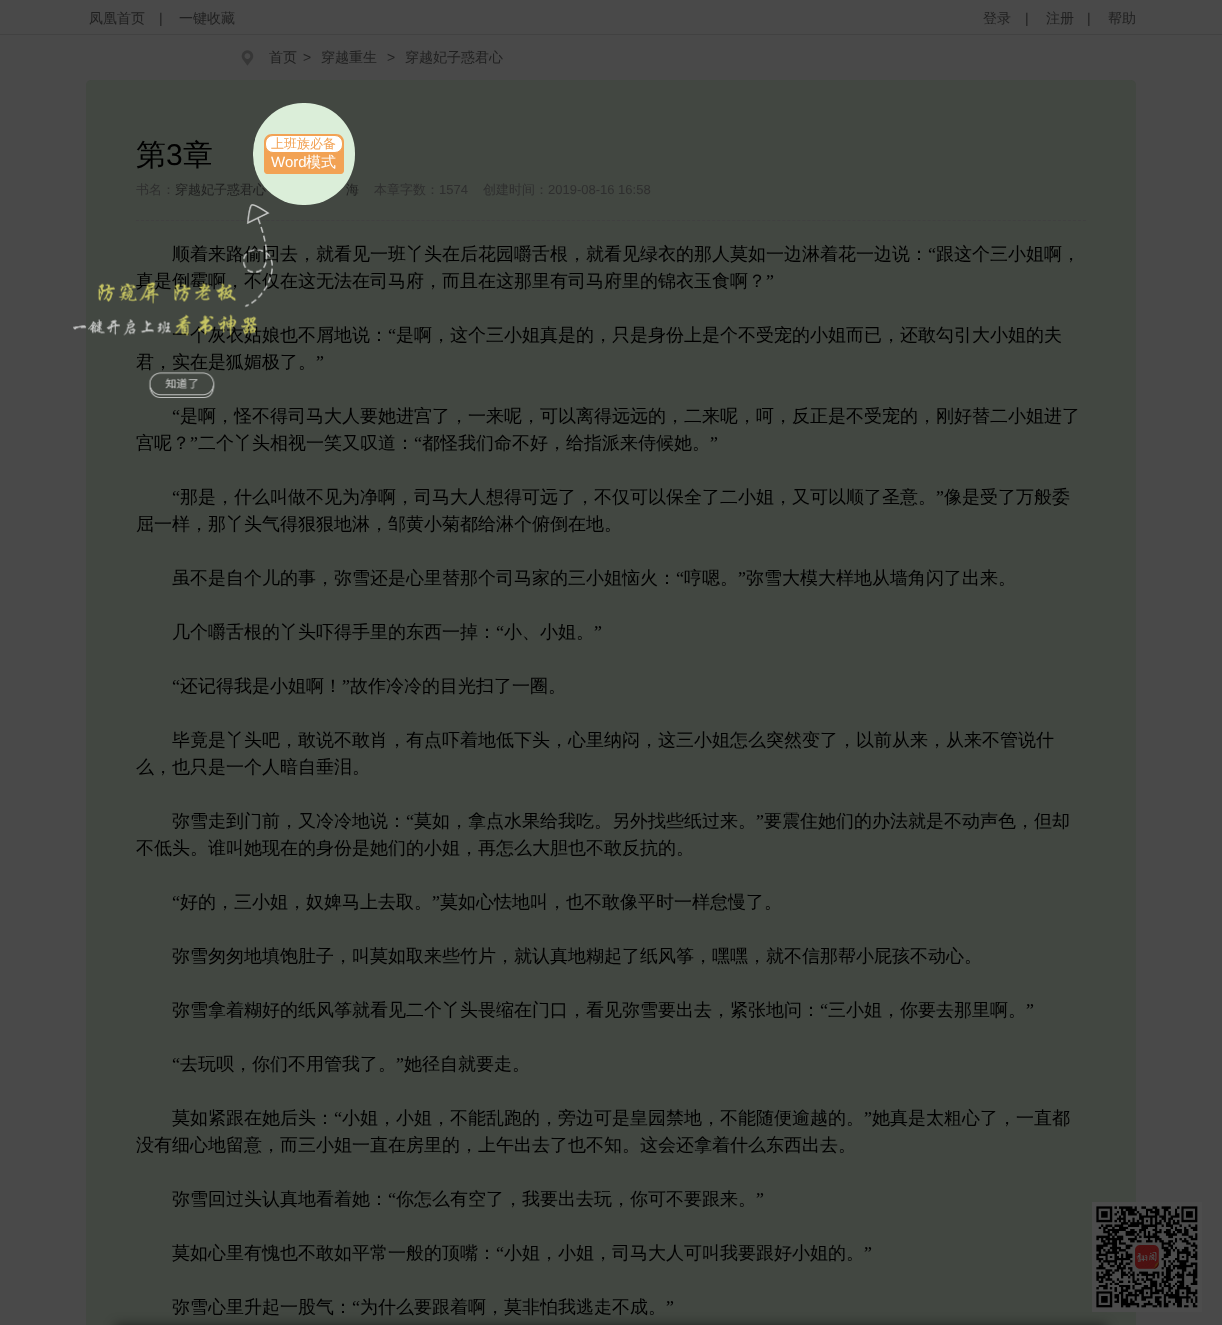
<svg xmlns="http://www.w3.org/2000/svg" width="1222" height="1325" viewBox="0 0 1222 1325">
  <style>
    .t1 { font: 500 14px WenQuanYi Zen Hei; fill: #1f1f1f; }
    .t2 { font: 14px Liberation Sans; fill: #1f1f1f; }
    .t3 { font: 500 30px WenQuanYi Zen Hei; fill: #000; }
    .t4 { font: 30px Liberation Sans; fill: #000; }
    .t5 { font: 500 13px WenQuanYi Zen Hei; fill: #1f1f1f; }
    .t6 { font: 500 18px WenQuanYi Zen Hei; fill: #000; }
    .t7 { font: 500 13px WenQuanYi Zen Hei; fill: #f2a254; }
    .t8 { font: 15px Liberation Sans; fill: #fff; }
    .t9 { font: 500 15px WenQuanYi Zen Hei; fill: #fff; }
    .t10 { font: 500 13px WenQuanYi Zen Hei; fill: #2e2e2e; }
    .t11 { font: 13px Liberation Sans; fill: #2e2e2e; }
    .t12 { font: 18px Liberation Serif; fill: #000; }
  </style>
  <rect width="100%" height="100%" fill="#494949"/>
  <rect x="0" y="34" width="1222" height="1" fill="#414141"/>
  <text x="89" y="23" class="t1">凤凰首页</text>
  <text x="159" y="23" class="t2">|</text>
  <text x="179" y="23" class="t1">一键收藏</text>
  <text x="983" y="23" class="t1">登录</text>
  <text x="1025" y="23" class="t2">|</text>
  <text x="1046" y="23" class="t1">注册</text>
  <text x="1087" y="23" class="t2">|</text>
  <text x="1108" y="23" class="t1">帮助</text>
  <image x="241" y="50" width="13" height="16" href="images/1.png"/>
  <text x="269" y="62" class="t1">首页</text>
  <text x="303" y="62" class="t2">&gt;</text>
  <text x="321" y="62" class="t1">穿越重生</text>
  <text x="387" y="62" class="t2">&gt;</text>
  <text x="405" y="62" class="t1">穿越妃子惑君心</text>
  <rect x="86" y="80" width="1050" height="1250" rx="5" fill="#424741"/>
  <path d="M136 220.5H1086" fill="none" stroke="#404040" stroke-dasharray="3 2.01"/>
  <text x="136" y="165" class="t3">第</text>
  <text x="166" y="165" class="t4">3</text>
  <text x="183" y="165" class="t3">章</text>
  <text x="175" y="194" class="t5">穿越妃子惑君心</text>
  <text x="346" y="194" class="t5">海</text>
  <text x="172" y="260" class="t6">顺着来路偷回去，就看见一班丫头在后花园嚼舌根，就看见绿衣的那人莫如一边淋着花一边说：</text>
  <text x="136" y="287" class="t6">真是倒霉啊，不仅在这无法在司马府，而且在这那里有司马府里的锦衣玉食啊？</text>
  <text x="172" y="341" class="t6">一个灰衣姑娘也不屑地说：</text>
  <text x="136" y="368" class="t6">君，实在是狐媚极了。</text>
  <image x="73" y="204" width="200" height="194" href="images/2.png"/>
  <rect x="253" y="103" width="102" height="102" rx="50" fill="#dbeed9"/>
  <path d="M272 134H336C340.5 134 344 137.5 344 142V171C344 172.5 342.5 174 341 174H267C265.5 174 264 172.5 264 171V142C264 137.5 267.5 134 272 134Z" fill="#f2a254"/>
  <rect x="265.5" y="135.5" width="77" height="17" rx="7.5" fill="#fff" stroke="#f2a254"/>
  <text x="271" y="148" class="t7">上班族必备</text>
  <text x="271" y="167" class="t8">Word</text>
  <text x="306" y="167" class="t9">模式</text>
  <text x="136" y="194" class="t10">书名：</text>
  <text x="374" y="194" class="t10">本章字数：</text>
  <text x="439" y="194" class="t11">1574</text>
  <text x="483" y="194" class="t10">创建时间：</text>
  <text x="548" y="194" class="t11">2019-08-16 16:58</text>
  <text x="928" y="260" class="t12">“</text>
  <text x="936" y="260" class="t6">跟这个三小姐啊，</text>
  <text x="766" y="287" class="t12">”</text>
  <text x="388" y="341" class="t12">“</text>
  <text x="396" y="341" class="t6">是啊，这个三小姐真是的，只是身份上是个不受宠的小姐而已，还敢勾引大小姐的夫</text>
  <text x="316" y="368" class="t12">”</text>
  <text x="172" y="422" class="t12">“</text>
  <text x="180" y="422" class="t6">是啊，怪不得司马大人要她进宫了，一来呢，可以离得远远的，二来呢，呵，反正是不受宠的，刚好替二小姐进了</text>
  <text x="136" y="449" class="t6">宫呢？</text>
  <text x="190" y="449" class="t12">”</text>
  <text x="198" y="449" class="t6">二个丫头相视一笑又叹道：</text>
  <text x="414" y="449" class="t12">“</text>
  <text x="422" y="449" class="t6">都怪我们命不好，给指派来侍候她。</text>
  <text x="710" y="449" class="t12">”</text>
  <text x="172" y="503" class="t12">“</text>
  <text x="180" y="503" class="t6">那是，什么叫做不见为净啊，司马大人想得可远了，不仅可以保全了二小姐，又可以顺了圣意。</text>
  <text x="936" y="503" class="t12">”</text>
  <text x="944" y="503" class="t6">像是受了万般委</text>
  <text x="136" y="530" class="t6">屈一样，那丫头气得狠狠地淋，邹黄小菊都给淋个俯倒在地。</text>
  <text x="172" y="584" class="t6">虽不是自个儿的事，弥雪还是心里替那个司马家的三小姐恼火：</text>
  <text x="676" y="584" class="t12">“</text>
  <text x="684" y="584" class="t6">哼嗯。</text>
  <text x="738" y="584" class="t12">”</text>
  <text x="746" y="584" class="t6">弥雪大模大样地从墙角闪了出来。</text>
  <text x="172" y="638" class="t6">几个嚼舌根的丫头吓得手里的东西一掉：</text>
  <text x="496" y="638" class="t12">“</text>
  <text x="504" y="638" class="t6">小、小姐。</text>
  <text x="594" y="638" class="t12">”</text>
  <text x="172" y="692" class="t12">“</text>
  <text x="180" y="692" class="t6">还记得我是小姐啊！</text>
  <text x="342" y="692" class="t12">”</text>
  <text x="350" y="692" class="t6">故作冷冷的目光扫了一圈。</text>
  <text x="172" y="746" class="t6">毕竟是丫头吧，敢说不敢肖，有点吓着地低下头，心里纳闷，这三小姐怎么突然变了，以前从来，从来不管说什</text>
  <text x="136" y="773" class="t6">么，也只是一个人暗自垂泪。</text>
  <text x="172" y="827" class="t6">弥雪走到门前，又冷冷地说：</text>
  <text x="406" y="827" class="t12">“</text>
  <text x="414" y="827" class="t6">莫如，拿点水果给我吃。另外找些纸过来。</text>
  <text x="756" y="827" class="t12">”</text>
  <text x="764" y="827" class="t6">要震住她们的办法就是不动声色，但却</text>
  <text x="136" y="854" class="t6">不低头。谁叫她现在的身份是她们的小姐，再怎么大胆也不敢反抗的。</text>
  <text x="172" y="908" class="t12">“</text>
  <text x="180" y="908" class="t6">好的，三小姐，奴婢马上去取。</text>
  <text x="432" y="908" class="t12">”</text>
  <text x="440" y="908" class="t6">莫如心怯地叫，也不敢像平时一样怠慢了。</text>
  <text x="172" y="962" class="t6">弥雪匆匆地填饱肚子，叫莫如取来些竹片，就认真地糊起了纸风筝，嘿嘿，就不信那帮小屁孩不动心。</text>
  <text x="172" y="1016" class="t6">弥雪拿着糊好的纸风筝就看见二个丫头畏缩在门口，看见弥雪要出去，紧张地问：</text>
  <text x="820" y="1016" class="t12">“</text>
  <text x="828" y="1016" class="t6">三小姐，你要去那里啊。</text>
  <text x="1026" y="1016" class="t12">”</text>
  <text x="172" y="1070" class="t12">“</text>
  <text x="180" y="1070" class="t6">去玩呗，你们不用管我了。</text>
  <text x="396" y="1070" class="t12">”</text>
  <text x="404" y="1070" class="t6">她径自就要走。</text>
  <text x="172" y="1124" class="t6">莫如紧跟在她后头：</text>
  <text x="334" y="1124" class="t12">“</text>
  <text x="342" y="1124" class="t6">小姐，小姐，不能乱跑的，旁边可是皇园禁地，不能随便逾越的。</text>
  <text x="864" y="1124" class="t12">”</text>
  <text x="872" y="1124" class="t6">她真是太粗心了，一直都</text>
  <text x="136" y="1151" class="t6">没有细心地留意，而三小姐一直在房里的，上午出去了也不知。这会还拿着什么东西出去。</text>
  <text x="172" y="1205" class="t6">弥雪回过头认真地看着她：</text>
  <text x="388" y="1205" class="t12">“</text>
  <text x="396" y="1205" class="t6">你怎么有空了，我要出去玩，你可不要跟来。</text>
  <text x="756" y="1205" class="t12">”</text>
  <text x="172" y="1259" class="t6">莫如心里有愧也不敢如平常一般的顶嘴：</text>
  <text x="496" y="1259" class="t12">“</text>
  <text x="504" y="1259" class="t6">小姐，小姐，司马大人可叫我要跟好小姐的。</text>
  <text x="864" y="1259" class="t12">”</text>
  <text x="172" y="1313" class="t6">弥雪心里升起一股气：</text>
  <text x="352" y="1313" class="t12">“</text>
  <text x="360" y="1313" class="t6">为什么要跟着啊，莫非怕我逃走不成。</text>
  <text x="666" y="1313" class="t12">”</text>
  <image x="1092" y="1202" width="110" height="110" href="images/3.png"/>
  <rect x="115" y="1325" width="992" height="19" rx="1" fill="#00000080" filter="blur(6px)"/>
</svg>
